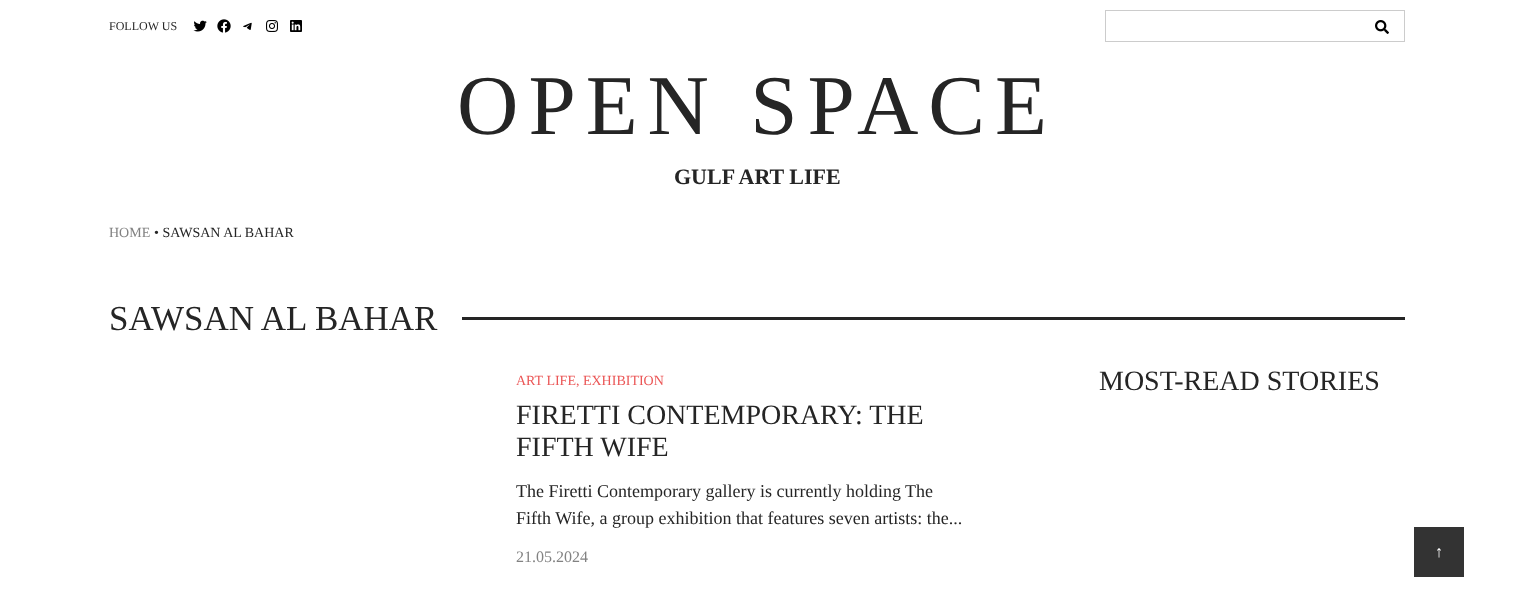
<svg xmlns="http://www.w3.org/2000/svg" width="1514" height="607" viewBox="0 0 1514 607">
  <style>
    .t1 { font: 12px Liberation Serif; fill: #252525; }
    .t2 { font: 85px Liberation Serif; letter-spacing: 10px; fill: #252525; }
    .t3 { font: bold 22px Liberation Serif; fill: #252525; }
    .t4 { font: 14px Liberation Serif; fill: #828282; }
    .t5 { font: 14px Liberation Serif; fill: #252525; }
    .t6 { font: 35px Liberation Serif; fill: #252525; }
    .t7 { font: 14px Liberation Serif; fill: #eb5757; }
    .t8 { font: 28px Liberation Serif; fill: #252525; }
    .t9 { font: 18px Liberation Serif; fill: #252525; }
    .t10 { font: 16px Liberation Serif; fill: #828282; }
    .t11 { font: 16px Liberation Serif; fill: #fff; }
  </style>
  <rect width="100%" height="100%" fill="#fff"/>
  <text x="109" y="30" class="t1">FOLLOW US</text>
  <image x="193" y="20" width="14" height="12" href="images/1.png"/>
  <image x="217" y="19" width="14" height="14" href="images/2.png"/>
  <image x="243" y="22" width="9" height="8" href="images/3.png"/>
  <image x="266" y="20" width="12" height="12" href="images/4.png"/>
  <image x="290" y="20" width="12" height="12" href="images/5.png"/>
  <rect x="1105.5" y="10.5" width="299" height="31" fill="none" stroke="#ccc"/>
  <image x="1375" y="20" width="14" height="14" href="images/6.png"/>
  <text x="457" y="134" class="t2">OPEN SPACE</text>
  <text x="674" y="184" class="t3">GULF ART LIFE</text>
  <text x="109" y="237" class="t4">HOME</text>
  <text x="154" y="237" class="t5">• SAWSAN AL BAHAR</text>
  <text x="109" y="330" class="t6">SAWSAN AL BAHAR</text>
  <rect x="462" y="317" width="943" height="3" fill="#252525"/>
  <text x="516" y="385" class="t7">ART LIFE, EXHIBITION</text>
  <text x="516" y="424" class="t8">FIRETTI CONTEMPORARY: THE</text>
  <text x="516" y="456" class="t8">FIFTH WIFE</text>
  <text x="516" y="497" class="t9">The Firetti Contemporary gallery is currently holding The</text>
  <text x="516" y="524" class="t9">Fifth Wife, a group exhibition that features seven artists: the...</text>
  <text x="516" y="562" class="t10">21.05.2024</text>
  <text x="1099" y="390" class="t8">MOST-READ STORIES</text>
  <rect x="1414" y="527" width="50" height="50" fill="#333"/>
  <text x="1435" y="557" class="t11">↑</text>
</svg>
